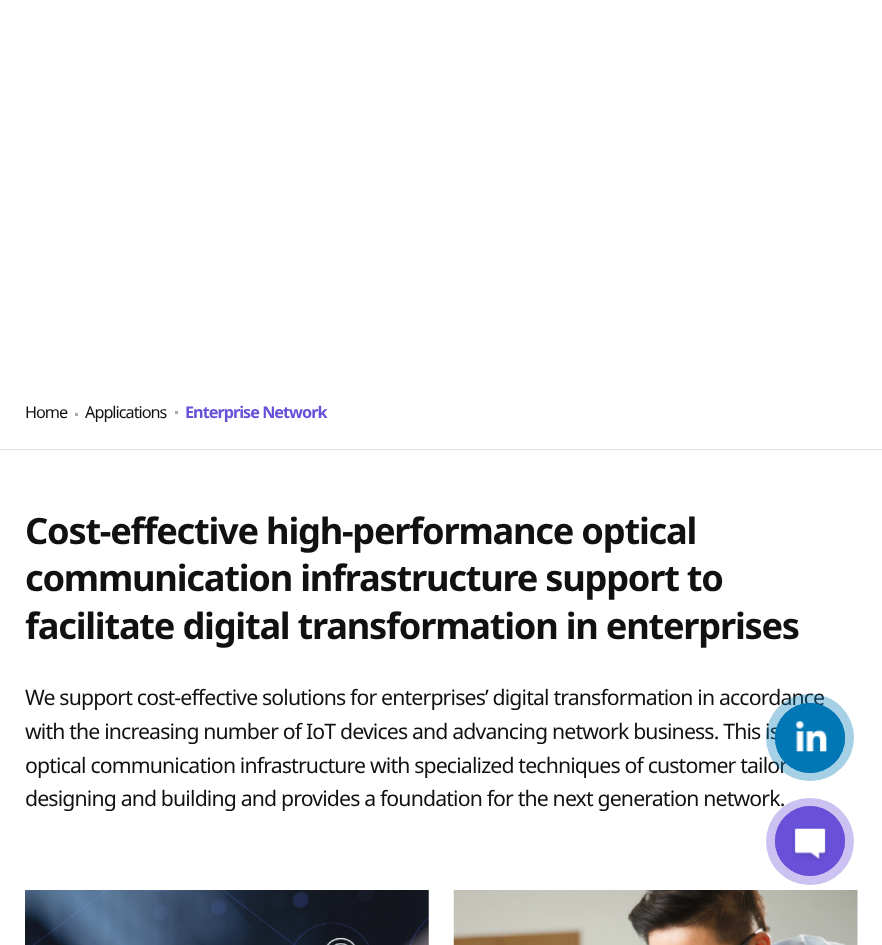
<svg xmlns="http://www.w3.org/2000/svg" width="882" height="945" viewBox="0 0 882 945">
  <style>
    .t1 { font: 16.25px Noto Sans; letter-spacing: -1px; fill: #111; }
    .t2 { font: bold 16.25px Noto Sans; letter-spacing: -1px; fill: #6950d8; }
    .t3 { font: bold 36.25px Noto Sans; letter-spacing: -1.25px; fill: #111; }
    .t4 { font: 21.25px Noto Sans; letter-spacing: -0.85px; fill: #111; }
  </style>
  <rect width="100%" height="100%" fill="#fff"/>
  <rect x="0" y="449" width="882" height="1" fill="#dfdfdf"/>
  <text x="25" y="418" class="t1">Home</text>
  <rect x="75" y="413" width="3" height="3" fill="#aaa"/>
  <text x="85" y="418" class="t1">Applications</text>
  <rect x="175" y="411" width="3" height="3" fill="#aaa"/>
  <text x="185" y="418" class="t2">Enterprise Network</text>
  <text x="25" y="544" class="t3">Cost-effective high-performance optical</text>
  <text x="25" y="591" class="t3">communication infrastructure support to</text>
  <text x="25" y="639" class="t3">facilitate digital transformation in enterprises</text>
  <text x="25" y="705" class="t4">We support cost-effective solutions for enterprises’ digital transformation in accordance</text>
  <text x="25" y="739" class="t4">with the increasing number of IoT devices and advancing network business. This is</text>
  <text x="25" y="773" class="t4">optical communication infrastructure with specialized techniques of customer tailor</text>
  <text x="25" y="806" class="t4">designing and building and provides a foundation for the next generation network.</text>
  <image x="25" y="890" width="404" height="55" href="images/1.png"/>
  <image x="453" y="890" width="405" height="55" href="images/2.png"/>
  <rect x="766" y="694" width="88" height="87" rx="43.5" fill="#0177b559"/>
  <circle cx="810" cy="738" r="34.5" fill="none" stroke="#0177b5"/>
  <circle cx="810" cy="738" r="35" fill="#0177b5"/>
  <image x="796" y="721" width="31" height="31" href="images/3.png"/>
  <rect x="766" y="798" width="88" height="87" rx="43.5" fill="#cbc2f1"/>
  <circle cx="810" cy="841" r="34.5" fill="none" stroke="#6950d8"/>
  <circle cx="810" cy="841" r="35" fill="#6950d8"/>
  <image x="792" y="828" width="36" height="33" href="images/4.png"/>
</svg>
